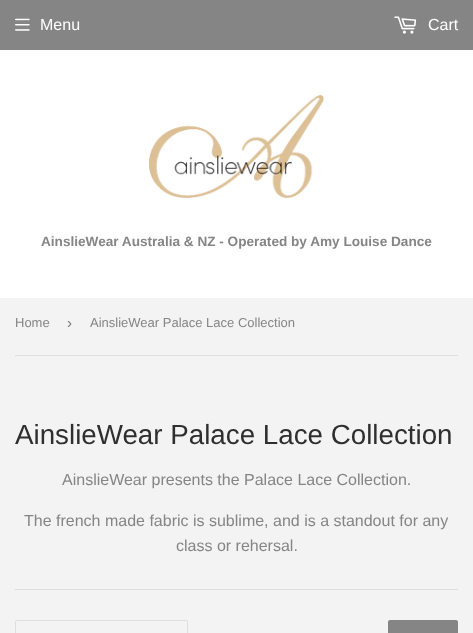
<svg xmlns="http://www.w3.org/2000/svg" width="473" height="633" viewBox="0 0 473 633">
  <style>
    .t1 { font: 16px Liberation Sans; fill: #fff; }
    .t2 { font: bold 13.6px Liberation Sans; fill: #858585; }
    .t3 { font: 13px Liberation Sans; fill: #858585; }
    .t4 { font: 15px Liberation Sans; fill: #767676; }
    .t5 { font: 27.75px Liberation Sans; fill: #2f2f2f; }
    .t6 { font: 16px Liberation Sans; fill: #858585; }
  </style>
  <rect width="100%" height="100%" fill="#f3f3f3"/>
  <rect x="0" y="0" width="473" height="50" fill="#858585"/>
  <image x="15" y="18" width="15" height="13" href="images/1.png"/>
  <text x="40" y="30" class="t1">Menu</text>
  <image x="394" y="16" width="23" height="18" href="images/2.png"/>
  <text x="428" y="30" class="t1">Cart</text>
  <rect x="0" y="50" width="473" height="248" fill="#fff"/>
  <image x="149" y="95" width="175" height="103" href="images/3.png"/>
  <text x="41" y="246" class="t2">AinslieWear Australia &amp; NZ - Operated by Amy Louise Dance</text>
  <rect x="15" y="355" width="443" height="1" fill="#dedede"/>
  <text x="15" y="327" class="t3">Home</text>
  <text x="67" y="328" class="t4">›</text>
  <text x="90" y="327" class="t3">AinslieWear Palace Lace Collection</text>
  <text x="15" y="444" class="t5">AinslieWear Palace Lace Collection</text>
  <text x="62" y="485" class="t6">AinslieWear presents the Palace Lace Collection.</text>
  <text x="24" y="526" class="t6">The french made fabric is sublime, and is a standout for any</text>
  <text x="176" y="551" class="t6">class or rehersal.</text>
  <rect x="15" y="589" width="443" height="1" fill="#dedede"/>
  <rect x="15.5" y="620.5" width="172" height="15" rx="1.5" fill="none" stroke="#dedede"/>
  <rect x="388" y="620" width="70" height="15" rx="2" fill="#858585"/>
</svg>
